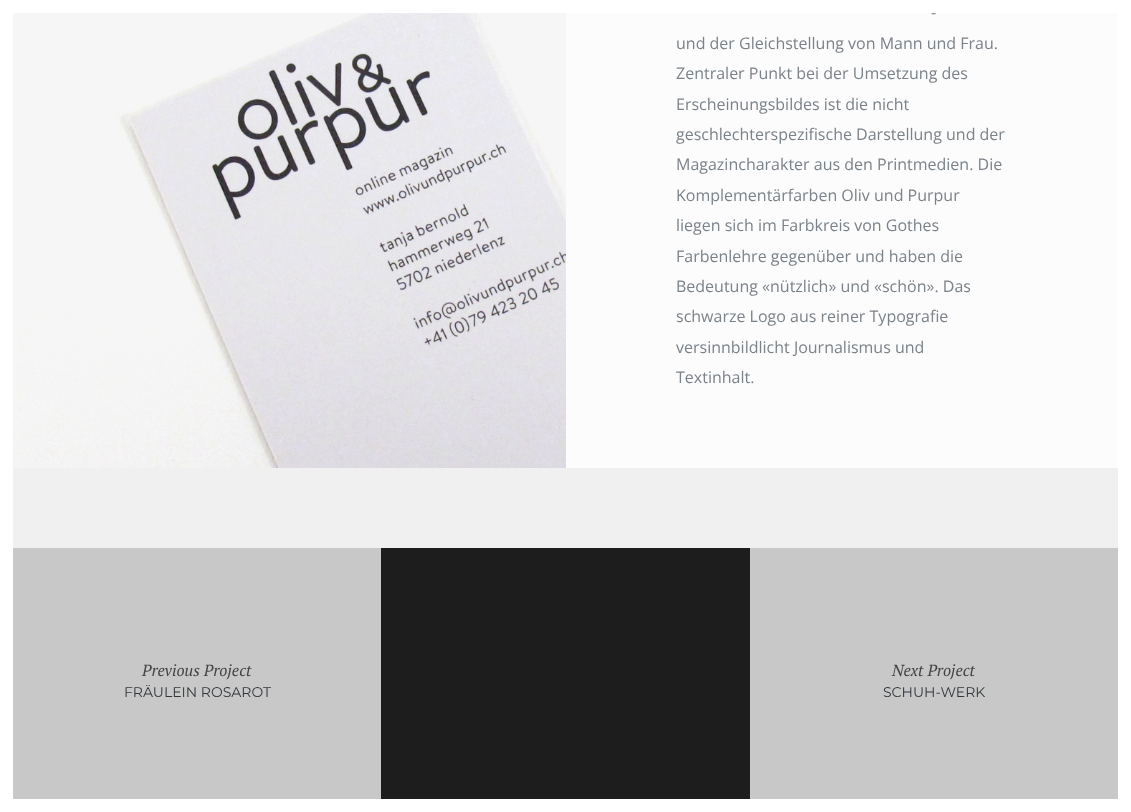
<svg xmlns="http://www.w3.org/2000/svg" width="1131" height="812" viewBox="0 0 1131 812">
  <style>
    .t1 { font: 16px Open Sans; fill: #7b8289; }
    .t2 { font: italic 16px PT Serif; fill: #444; }
    .t3 { font: 14px Montserrat; fill: #32373c; }
  </style>
  <rect width="100%" height="100%" fill="#f0f0f0"/>
  <rect x="0" y="0" width="13" height="812" fill="#fff"/>
  <rect x="13" y="0" width="1105" height="13" fill="#fff"/>
  <rect x="1118" y="0" width="13" height="812" fill="#fff"/>
  <image x="13" y="13" width="553" height="455" href="images/1.png"/>
  <rect x="566" y="13" width="552" height="455" fill="#fcfcfc"/>
  <text x="931" y="18" class="t1">-</text>
  <text x="676" y="49" class="t1">und der Gleichstellung von Mann und Frau.</text>
  <text x="676" y="79" class="t1">Zentraler Punkt bei der Umsetzung des</text>
  <text x="676" y="110" class="t1">Erscheinungsbildes ist die nicht</text>
  <text x="676" y="140" class="t1">geschlechterspezifische Darstellung und der</text>
  <text x="676" y="170" class="t1">Magazincharakter aus den Printmedien. Die</text>
  <text x="676" y="201" class="t1">Komplementärfarben Oliv und Purpur</text>
  <text x="676" y="231" class="t1">liegen sich im Farbkreis von Gothes</text>
  <text x="676" y="262" class="t1">Farbenlehre gegenüber und haben die</text>
  <text x="676" y="292" class="t1">Bedeutung «nützlich» und «schön». Das</text>
  <text x="676" y="322" class="t1">schwarze Logo aus reiner Typografie</text>
  <text x="676" y="353" class="t1">versinnbildlicht Journalismus und</text>
  <text x="676" y="383" class="t1">Textinhalt.</text>
  <rect x="13" y="548" width="368" height="251" fill="#c8c8c8"/>
  <text x="142" y="676" class="t2">Previous Project</text>
  <text x="124" y="697" class="t3">FRÄULEIN ROSAROT</text>
  <rect x="381" y="548" width="369" height="251" fill="#1d1d1d"/>
  <rect x="750" y="548" width="368" height="251" fill="#c8c8c8"/>
  <text x="892" y="676" class="t2">Next Project</text>
  <text x="883" y="697" class="t3">SCHUH-WERK</text>
  <rect x="13" y="799" width="1105" height="13" fill="#fff"/>
</svg>
